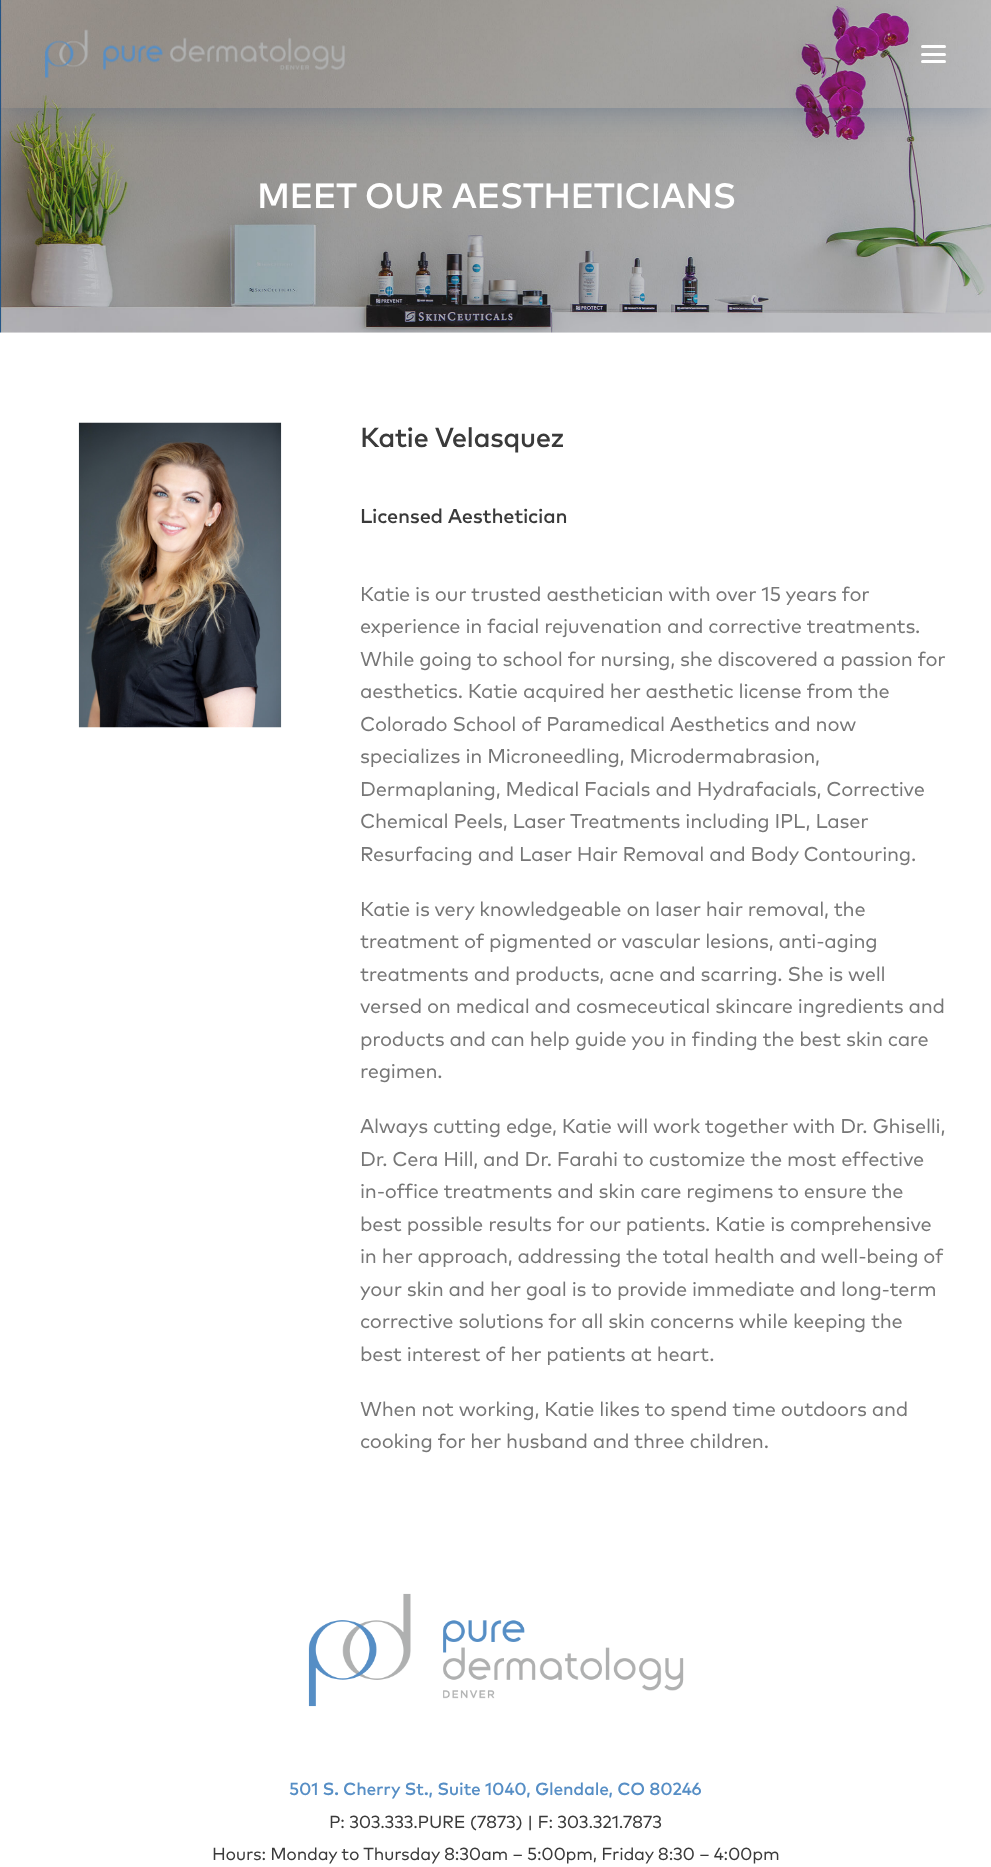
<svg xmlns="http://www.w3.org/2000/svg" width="991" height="1867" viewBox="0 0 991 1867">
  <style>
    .t1 { font: 500 35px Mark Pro; letter-spacing: -0.6px; fill: #fff; }
    .t2 { font: 500 27.5px Mark Pro; letter-spacing: -0.6px; fill: #3a3a3a; }
    .t3 { font: 500 20px Mark Pro; letter-spacing: -0.25px; fill: #3a3a3a; }
    .t4 { font: 20px Mark Pro; letter-spacing: -0.25px; fill: #777; }
    .t5 { font: 500 17.5px Mark Pro; letter-spacing: -0.25px; fill: #568ec5; }
    .t6 { font: 17.5px Mark Pro; letter-spacing: -0.25px; fill: #3a3a3a; }
  </style>
  <defs>
    <clipPath id="clip1"><path d="M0 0H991V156H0ZM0 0H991V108H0Z" clip-rule="evenodd"/></clipPath>
  </defs>
  <rect width="100%" height="100%" fill="#f7f7f7"/>
  <image x="0" y="0" width="991" height="333" href="images/2.png"/>
  <g clip-path="url(#clip1)">
    <rect x="6" y="13" width="979" height="95" fill="#0536694d" filter="blur(15.5px)"/>
  </g>
  <image x="45" y="29" width="300" height="49" href="images/1.png"/>
  <rect x="921" y="53" width="25" height="3" rx="1.5" fill="#fff"/>
  <rect x="921" y="45" width="25" height="3" rx="1.5" fill="#fff"/>
  <rect x="921" y="60" width="25" height="3" rx="1.5" fill="#fff"/>
  <text x="257" y="208" class="t1">MEET OUR AESTHETICIANS</text>
  <rect x="0" y="333" width="991" height="1534" fill="#fff"/>
  <image x="78" y="422" width="204" height="306" href="images/3.png"/>
  <text x="360" y="447" class="t2">Katie Velasquez</text>
  <text x="360" y="523" class="t3">Licensed Aesthetician</text>
  <text x="360" y="601" class="t4">Katie is our trusted aesthetician with over 15 years for</text>
  <text x="360" y="633" class="t4">experience in facial rejuvenation and corrective treatments.</text>
  <text x="360" y="666" class="t4">While going to school for nursing, she discovered a passion for</text>
  <text x="360" y="698" class="t4">aesthetics. Katie acquired her aesthetic license from the</text>
  <text x="360" y="731" class="t4">Colorado School of Paramedical Aesthetics and now</text>
  <text x="360" y="763" class="t4">specializes in Microneedling, Microdermabrasion,</text>
  <text x="360" y="796" class="t4">Dermaplaning, Medical Facials and Hydrafacials, Corrective</text>
  <text x="360" y="828" class="t4">Chemical Peels, Laser Treatments including IPL, Laser</text>
  <text x="360" y="861" class="t4">Resurfacing and Laser Hair Removal and Body Contouring.</text>
  <text x="360" y="916" class="t4">Katie is very knowledgeable on laser hair removal, the</text>
  <text x="360" y="948" class="t4">treatment of pigmented or vascular lesions, anti-aging</text>
  <text x="360" y="981" class="t4">treatments and products, acne and scarring. She is well</text>
  <text x="360" y="1013" class="t4">versed on medical and cosmeceutical skincare ingredients and</text>
  <text x="360" y="1046" class="t4">products and can help guide you in finding the best skin care</text>
  <text x="360" y="1078" class="t4">regimen.</text>
  <text x="360" y="1133" class="t4">Always cutting edge, Katie will work together with Dr. Ghiselli,</text>
  <text x="360" y="1166" class="t4">Dr. Cera Hill, and Dr. Farahi to customize the most effective</text>
  <text x="360" y="1198" class="t4">in-office treatments and skin care regimens to ensure the</text>
  <text x="360" y="1231" class="t4">best possible results for our patients. Katie is comprehensive</text>
  <text x="360" y="1263" class="t4">in her approach, addressing the total health and well-being of</text>
  <text x="360" y="1296" class="t4">your skin and her goal is to provide immediate and long-term</text>
  <text x="360" y="1328" class="t4">corrective solutions for all skin concerns while keeping the</text>
  <text x="360" y="1361" class="t4">best interest of her patients at heart.</text>
  <text x="360" y="1416" class="t4">When not working, Katie likes to spend time outdoors and</text>
  <text x="360" y="1448" class="t4">cooking for her husband and three children.</text>
  <image x="308" y="1593" width="376" height="114" href="images/4.png"/>
  <text x="289" y="1795" class="t5">501 S. Cherry St., Suite 1040, Glendale, CO 80246</text>
  <text x="329" y="1828" class="t6">P: 303.333.PURE (7873) | F: 303.321.7873</text>
  <text x="212" y="1860" class="t6">Hours: Monday to Thursday 8:30am – 5:00pm, Friday 8:30 – 4:00pm</text>
</svg>
